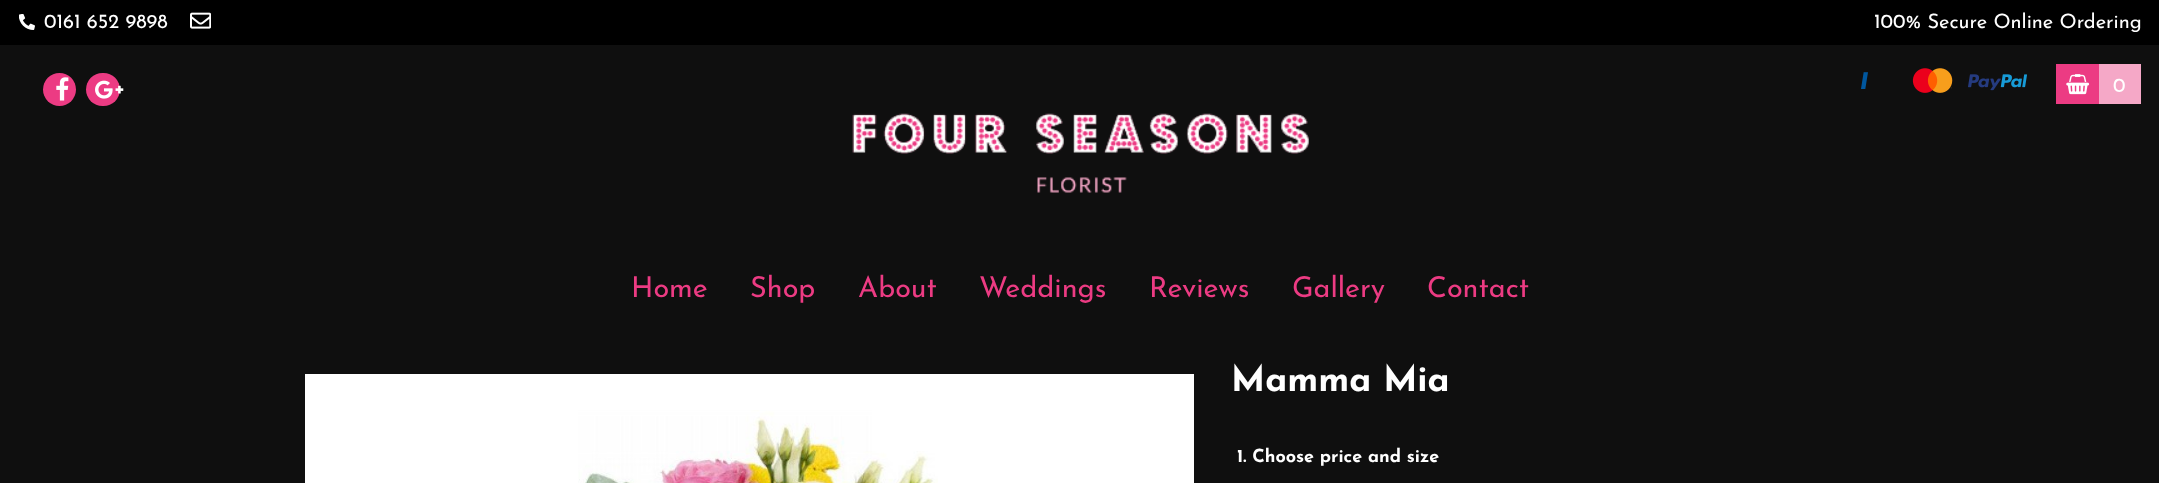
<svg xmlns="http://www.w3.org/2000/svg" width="2159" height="483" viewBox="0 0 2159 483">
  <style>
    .t1 { font: 20px Josefin Sans; fill: #fff; }
    .t2 { font: 28.75px Josefin Sans; fill: #ec3b83; }
    .t3 { font: bold 36px Josefin Sans; fill: #fff; }
    .t4 { font: bold 18px Josefin Sans; fill: #fff; }
  </style>
  <rect width="100%" height="100%" fill="#0f0f0f"/>
  <rect x="0" y="0" width="2159" height="45" fill="#000"/>
  <image x="19" y="14" width="16" height="16" href="images/1.png"/>
  <text x="44" y="28" class="t1">0161 652 9898</text>
  <image x="190" y="12" width="21" height="17" href="images/2.png"/>
  <text x="1874" y="28" class="t1">100% Secure Online Ordering</text>
  <circle cx="59.5" cy="89.5" r="16.5" fill="#ec3b83"/>
  <image x="56" y="77" width="13" height="24" href="images/3.png"/>
  <rect x="86" y="73" width="34" height="33" rx="16.5" fill="#ec3b83"/>
  <image x="95" y="80" width="29" height="19" href="images/4.png"/>
  <image x="1861" y="68" width="166" height="25" href="images/5.png"/>
  <rect x="2056" y="64" width="43" height="40" fill="#ec3b83"/>
  <image x="2066" y="74" width="24" height="21" href="images/6.png"/>
  <rect x="2099" y="64" width="42" height="40" fill="#f5a8c7"/>
  <text x="2113" y="92" class="t1">0</text>
  <image x="852" y="113" width="457" height="80" href="images/7.png"/>
  <text x="631" y="297" class="t2">Home</text>
  <text x="750" y="297" class="t2">Shop</text>
  <text x="858" y="297" class="t2">About</text>
  <text x="979" y="297" class="t2">Weddings</text>
  <text x="1149" y="297" class="t2">Reviews</text>
  <text x="1292" y="297" class="t2">Gallery</text>
  <text x="1427" y="297" class="t2">Contact</text>
  <rect x="305" y="374" width="889" height="109" fill="#fff"/>
  <image x="578" y="410" width="360" height="73" href="images/8.png"/>
  <text x="1231" y="391" class="t3">Mamma Mia</text>
  <text x="1237" y="462" class="t4">1. Choose price and size</text>
</svg>
